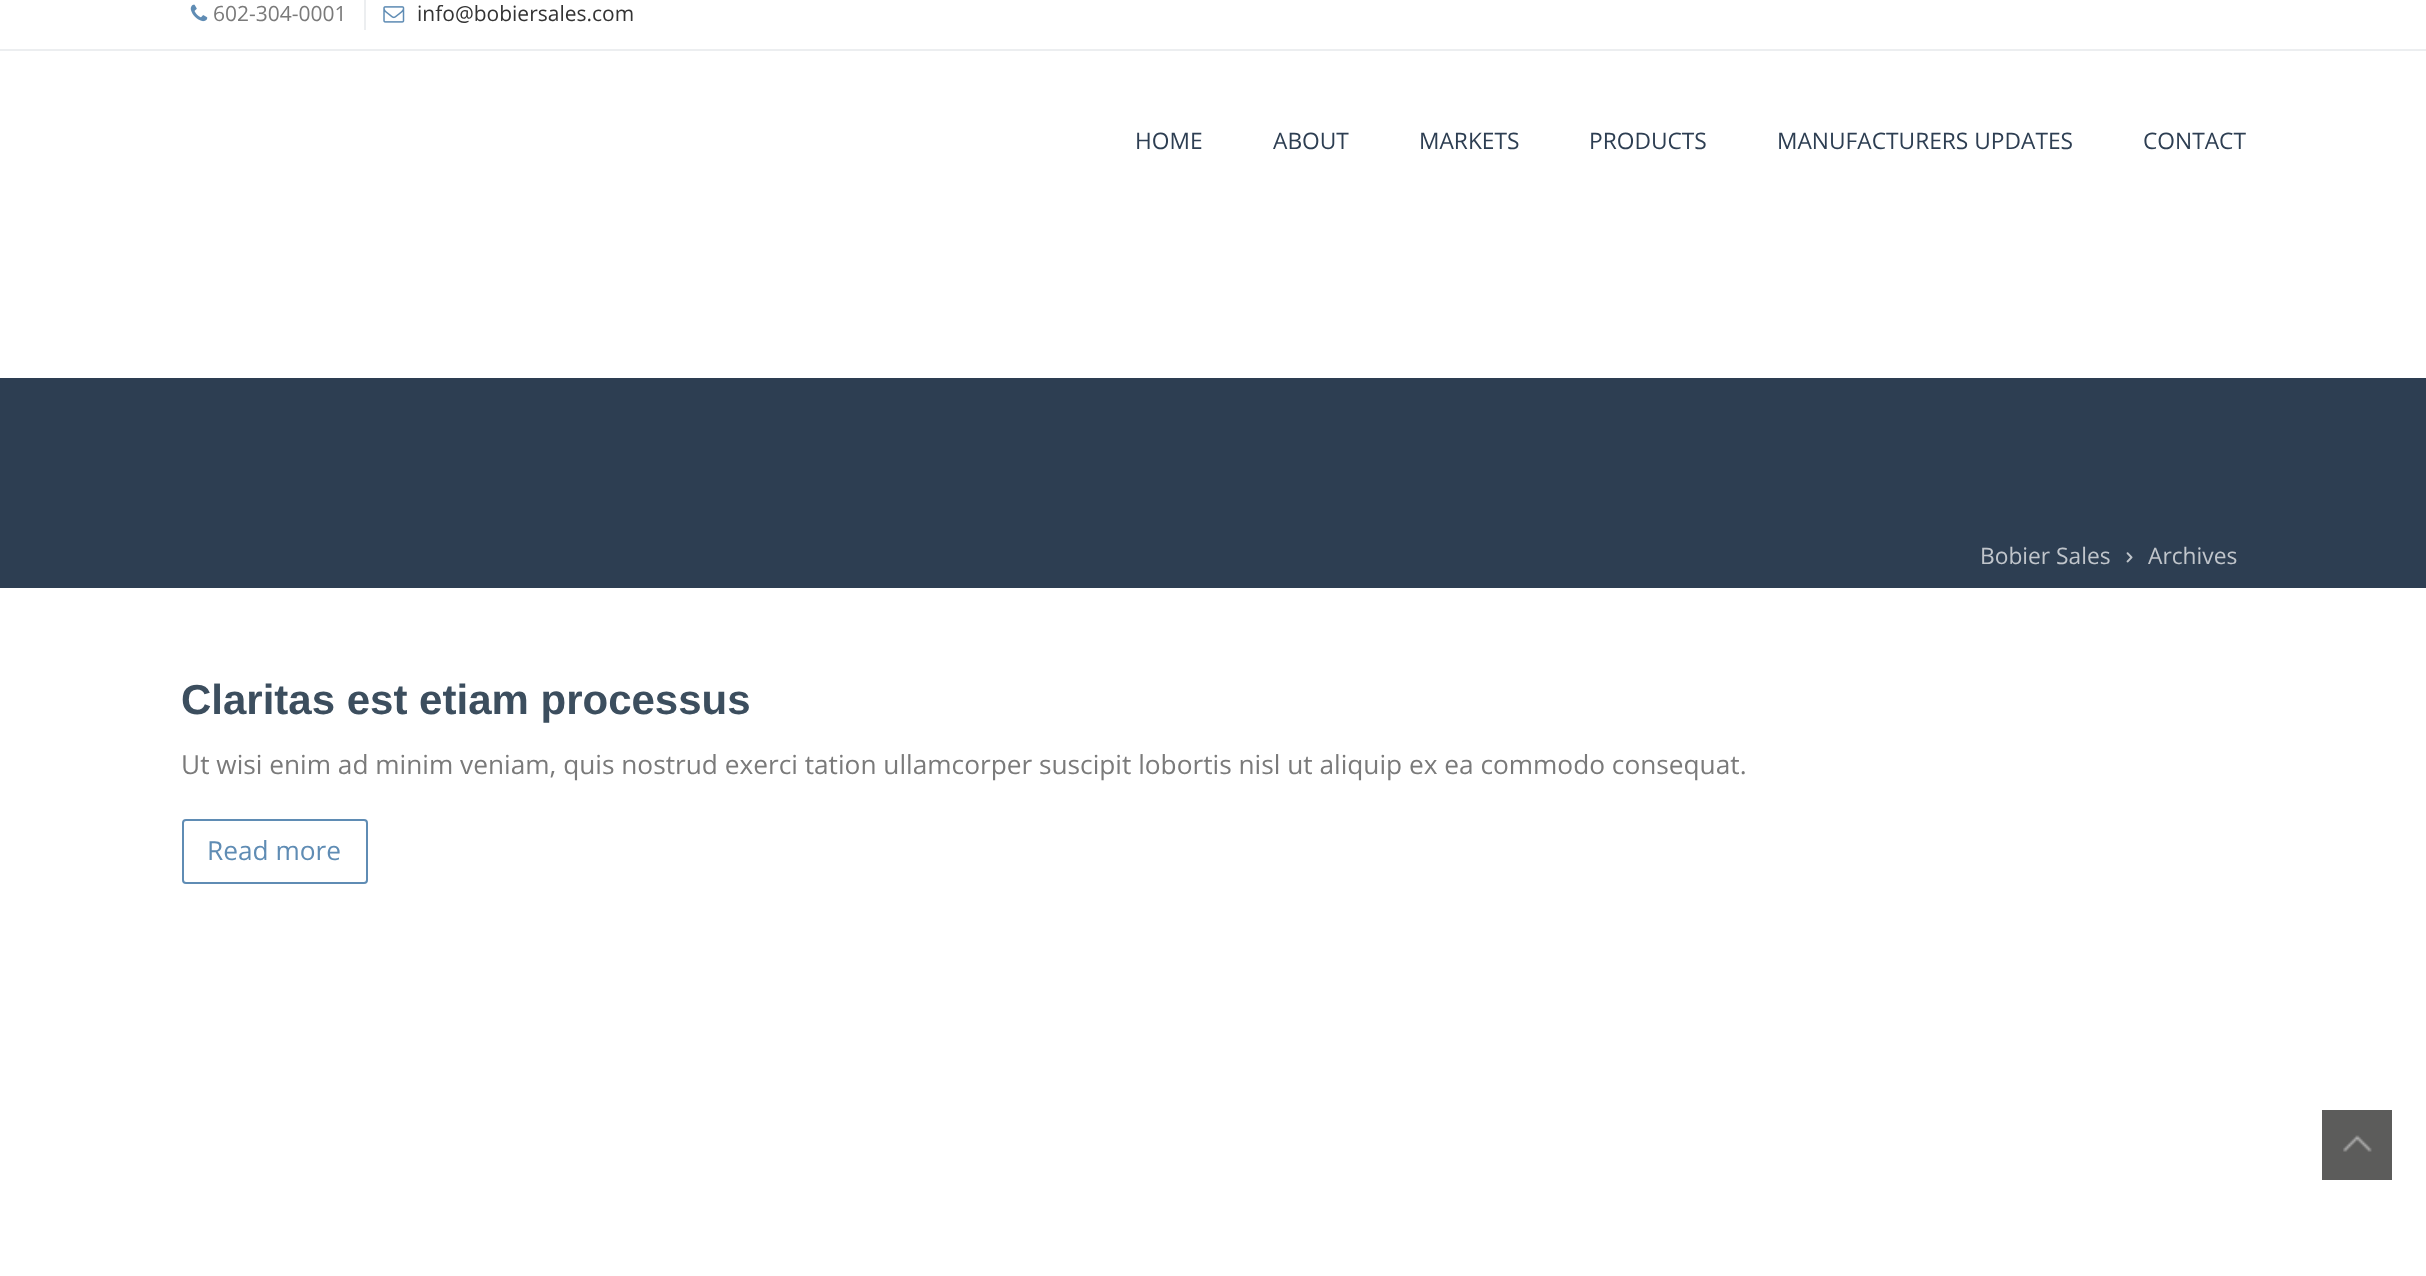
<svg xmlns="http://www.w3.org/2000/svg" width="2426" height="1276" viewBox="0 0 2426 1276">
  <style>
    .t1 { font: 21px Open Sans; fill: #7a7a7a; }
    .t2 { font: 21px Open Sans; fill: #333; }
    .t3 { font: 22.75px Open Sans; fill: #2d3e52; }
    .t4 { font: 22.75px Open Sans; fill: #c0c5cb; }
    .t5 { font: bold 42px Liberation Sans; fill: #3c4e5e; }
    .t6 { font: 26.25px Open Sans; fill: #7a7a7a; }
    .t7 { font: 26.25px Open Sans; fill: #5f8cb4; }
  </style>
  <rect width="100%" height="100%" fill="#fff"/>
  <rect x="0" y="49" width="2426" height="2" fill="#eceef0"/>
  <rect x="364" y="0" width="2" height="30" fill="#eceef0"/>
  <image x="190" y="4" width="18" height="18" href="images/1.png"/>
  <text x="213" y="21" class="t1">602-304-0001</text>
  <image x="383" y="6" width="22" height="17" href="images/2.png"/>
  <text x="417" y="21" class="t2">info@bobiersales.com</text>
  <text x="1135" y="149" class="t3">HOME</text>
  <text x="1273" y="149" class="t3">ABOUT</text>
  <text x="1419" y="149" class="t3">MARKETS</text>
  <text x="1589" y="149" class="t3">PRODUCTS</text>
  <text x="1777" y="149" class="t3">MANUFACTURERS UPDATES</text>
  <text x="2143" y="149" class="t3">CONTACT</text>
  <rect x="0" y="378" width="2426" height="210" fill="#2d3e52"/>
  <text x="1980" y="564" class="t4">Bobier Sales</text>
  <image x="2126" y="552" width="7" height="11" href="images/3.png"/>
  <text x="2148" y="564" class="t4">Archives</text>
  <text x="181" y="714" class="t5">Claritas est etiam processus</text>
  <text x="181" y="774" class="t6">Ut wisi enim ad minim veniam, quis nostrud exerci tation ullamcorper suscipit lobortis nisl ut aliquip ex ea commodo consequat.</text>
  <rect x="183" y="820" width="184" height="63" rx="3" fill="none" stroke="#5f8cb4" stroke-width="2"/>
  <text x="207" y="860" class="t7">Read more</text>
  <rect x="2322" y="1110" width="70" height="70" fill="#5c5c5b"/>
  <image x="2343" y="1135" width="29" height="17" href="images/4.png"/>
</svg>
